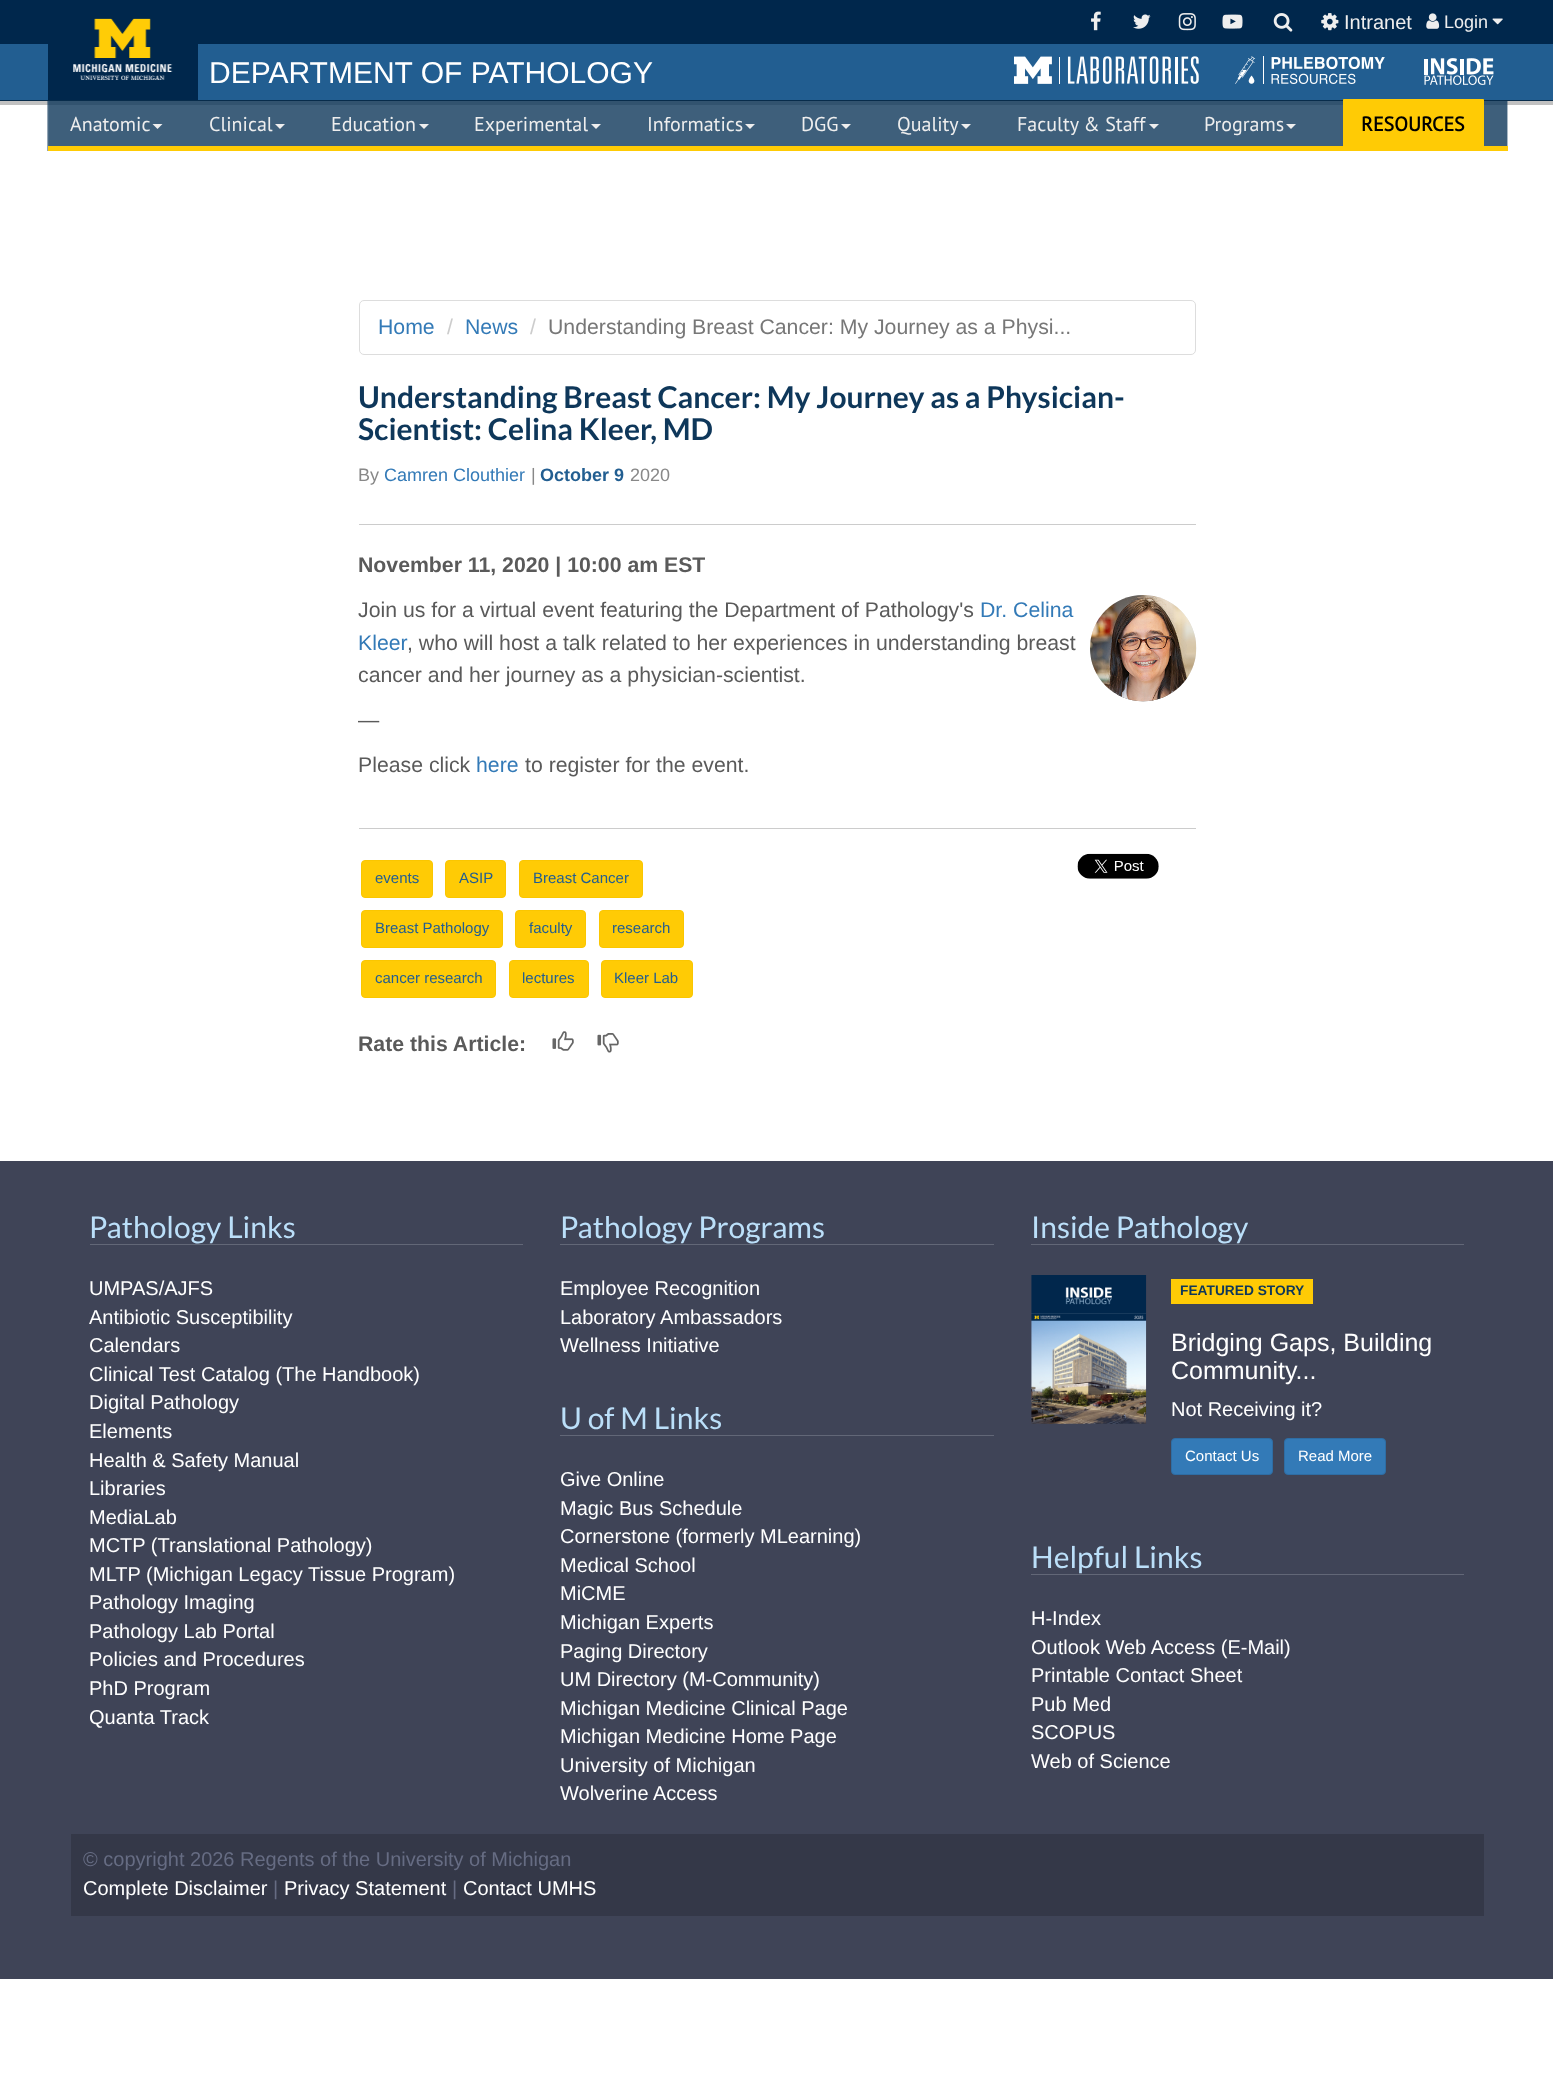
<svg xmlns="http://www.w3.org/2000/svg" width="1553" height="2096" viewBox="0 0 1553 2096">
  <style>
    .t1 { font: 20px Liberation Sans; fill: #eee; }
    .t2 { font: 18px Liberation Sans; fill: #eee; }
    .t3 { font: 30px Liberation Sans; fill: #fff; }
    .t4 { font: 20px PT Sans; fill: #eee; }
    .t5 { font: bold 20px PT Sans; fill: #000; }
    .t6 { font: 21.25px Liberation Sans; fill: #337ab7; }
    .t7 { font: 21.25px Liberation Sans; fill: #ccc; }
    .t8 { font: 21.25px Liberation Sans; fill: #777; }
    .t9 { font: bold 30px Lato; fill: #0e375a; }
    .t10 { font: 18px Liberation Sans; fill: #888; }
    .t11 { font: 18px Liberation Sans; fill: #337ab7; }
    .t12 { font: bold 18px Liberation Sans; fill: #225e91; }
    .t13 { font: bold 21.25px Liberation Sans; fill: #5a5a5a; }
    .t14 { font: 21.25px Liberation Sans; fill: #5a5a5a; }
    .t15 { font: 15px Liberation Sans; fill: #225e91; }
    .t16 { font: 30px Lato; fill: #bbdff9; }
    .t17 { font: 20px Liberation Sans; fill: #fff; }
    .t18 { font: bold 13.75px Liberation Sans; fill: #0e375a; }
    .t19 { font: 25px Liberation Sans; fill: #fff; }
    .t20 { font: 15px Liberation Sans; fill: #fff; }
    .t21 { font: 20px Liberation Sans; fill: #666c83; }
  </style>
  <rect width="100%" height="100%" fill="#fff"/>
  <rect x="0" y="0" width="1553" height="44" fill="#00274c"/>
  <rect x="0" y="48" width="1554" height="57" fill="#3232324d" filter="blur(0.5px)"/>
  <rect x="0" y="44" width="1553" height="56" fill="#225e91"/>
  <rect x="48" y="44" width="150" height="56" fill="#00274c"/>
  <image x="73" y="18" width="100" height="62" href="images/1.png"/>
  <image x="1091" y="11" width="10" height="20" href="images/2.png"/>
  <image x="1133" y="14" width="18" height="15" href="images/3.png"/>
  <image x="1178" y="13" width="18" height="18" href="images/4.png"/>
  <image x="1222" y="14" width="21" height="15" href="images/5.png"/>
  <image x="1273" y="13" width="20" height="19" href="images/6.png"/>
  <image x="1321" y="13" width="18" height="18" href="images/7.png"/>
  <text x="1344" y="29" class="t1">Intranet</text>
  <image x="1426" y="13" width="14" height="16" href="images/8.png"/>
  <text x="1444" y="28" class="t2">Login</text>
  <image x="1492" y="18" width="11" height="7" href="images/9.png"/>
  <rect x="0" y="100" width="1553" height="1" fill="#082c4b"/>
  <text x="209" y="83" class="t3">DEPARTMENT OF PATHOLOGY</text>
  <image x="1014" y="56" width="185" height="28" href="images/10.png"/>
  <image x="1235" y="56" width="150" height="28" href="images/11.png"/>
  <image x="1424" y="58" width="70" height="27" href="images/12.png"/>
  <image x="47" y="101" width="1461" height="50" href="images/13.png"/>
  <rect x="48" y="146" width="1460" height="5" fill="#ffcb05"/>
  <text x="70" y="131" class="t4">Anatomic</text>
  <path d="M152.5 124H162.5L157.5 129Z" fill="#eee"/>
  <text x="209" y="131" class="t4">Clinical</text>
  <path d="M275 124H285L280 129Z" fill="#eee"/>
  <text x="331" y="131" class="t4">Education</text>
  <path d="M419 124H429L424 129Z" fill="#eee"/>
  <text x="474" y="131" class="t4">Experimental</text>
  <path d="M591 124H601L596 129Z" fill="#eee"/>
  <text x="647" y="131" class="t4">Informatics</text>
  <path d="M745 124H755L750 129Z" fill="#eee"/>
  <text x="801" y="131" class="t4">DGG</text>
  <path d="M841 124H851L846 129Z" fill="#eee"/>
  <text x="897" y="131" class="t4">Quality</text>
  <path d="M961 124H971L966 129Z" fill="#eee"/>
  <text x="1017" y="131" class="t4">Faculty &amp; Staff</text>
  <path d="M1149 124H1159L1154 129Z" fill="#eee"/>
  <text x="1204" y="131" class="t4">Programs</text>
  <path d="M1286 124H1296L1291 129Z" fill="#eee"/>
  <path d="M1344 99H1483C1483.5 99 1484 99.5 1484 100V149H1343V100C1343 99.5 1343.5 99 1344 99Z" fill="#ffcb05"/>
  <text x="1361" y="131" class="t5">RESOURCES</text>
  <rect x="359.5" y="300.5" width="836" height="54" rx="4.5" fill="none" stroke="#ddd"/>
  <text x="378" y="334" class="t6">Home</text>
  <text x="447" y="334" class="t7">/</text>
  <text x="465" y="334" class="t6">News</text>
  <text x="530" y="334" class="t7">/</text>
  <text x="548" y="334" class="t8">Understanding Breast Cancer: My Journey as a Physi...</text>
  <text x="358" y="408" class="t9">Understanding Breast Cancer: My Journey as a Physician-</text>
  <text x="358" y="440" class="t9">Scientist: Celina Kleer, MD</text>
  <rect x="359" y="524" width="837" height="1" fill="#ccc"/>
  <text x="358" y="481" class="t10">By</text>
  <text x="384" y="481" class="t11">Camren Clouthier</text>
  <text x="531" y="481" class="t10">|</text>
  <text x="540" y="481" class="t12">October 9</text>
  <text x="630" y="481" class="t10">2020</text>
  <text x="358" y="572" class="t13">November 11, 2020 | 10:00 am EST</text>
  <text x="358" y="617" class="t14">Join us for a virtual event featuring the Department of Pathology's</text>
  <text x="980" y="617" class="t6">Dr. Celina</text>
  <image x="1090" y="595" width="107" height="107" href="images/14.png"/>
  <image x="1090" y="595" width="107" height="107" href="images/15.png"/>
  <text x="358" y="650" class="t6">Kleer</text>
  <text x="407" y="650" class="t14">, who will host a talk related to her experiences in understanding breast</text>
  <text x="358" y="682" class="t14">cancer and her journey as a physician-scientist.</text>
  <text x="358" y="727" class="t14">—</text>
  <text x="358" y="772" class="t14">Please click</text>
  <text x="476" y="772" class="t6">here</text>
  <text x="525" y="772" class="t14">to register for the event.</text>
  <rect x="359" y="828" width="837" height="1" fill="#ccc"/>
  <image x="1077" y="853" width="82" height="26" href="images/16.png"/>
  <rect x="361.5" y="860.5" width="71" height="37" rx="3.5" fill="#ffcb05" stroke="#fac600"/>
  <text x="375" y="883" class="t15">events</text>
  <rect x="445.5" y="860.5" width="60" height="37" rx="3.5" fill="#ffcb05" stroke="#fac600"/>
  <text x="459" y="883" class="t15">ASIP</text>
  <rect x="519.5" y="860.5" width="123" height="37" rx="3.5" fill="#ffcb05" stroke="#fac600"/>
  <text x="533" y="883" class="t15">Breast Cancer</text>
  <rect x="361.5" y="910.5" width="141" height="37" rx="3.5" fill="#ffcb05" stroke="#fac600"/>
  <text x="375" y="933" class="t15">Breast Pathology</text>
  <rect x="515.5" y="910.5" width="70" height="37" rx="3.5" fill="#ffcb05" stroke="#fac600"/>
  <text x="529" y="933" class="t15">faculty</text>
  <rect x="599.5" y="910.5" width="84" height="37" rx="3.5" fill="#ffcb05" stroke="#fac600"/>
  <text x="612" y="933" class="t15">research</text>
  <rect x="361.5" y="960.5" width="134" height="37" rx="3.5" fill="#ffcb05" stroke="#fac600"/>
  <text x="375" y="983" class="t15">cancer research</text>
  <rect x="509.5" y="960.5" width="79" height="37" rx="3.5" fill="#ffcb05" stroke="#fac600"/>
  <text x="522" y="983" class="t15">lectures</text>
  <rect x="601.5" y="960.5" width="91" height="37" rx="3.5" fill="#ffcb05" stroke="#fac600"/>
  <text x="614" y="983" class="t15">Kleer Lab</text>
  <text x="358" y="1051" class="t13">Rate this Article:</text>
  <image x="552" y="1031" width="22" height="20" href="images/17.png"/>
  <image x="597" y="1033" width="22" height="20" href="images/18.png"/>
  <rect x="0" y="1161" width="1553" height="818" fill="#3f4457"/>
  <rect x="90" y="1244" width="433" height="1" fill="#626777"/>
  <text x="89" y="1238" class="t16">Pathology Links</text>
  <text x="89" y="1295" class="t17">UMPAS/AJFS</text>
  <text x="89" y="1324" class="t17">Antibiotic Susceptibility</text>
  <text x="89" y="1352" class="t17">Calendars</text>
  <text x="89" y="1381" class="t17">Clinical Test Catalog (The Handbook)</text>
  <text x="89" y="1409" class="t17">Digital Pathology</text>
  <text x="89" y="1438" class="t17">Elements</text>
  <text x="89" y="1467" class="t17">Health &amp; Safety Manual</text>
  <text x="89" y="1495" class="t17">Libraries</text>
  <text x="89" y="1524" class="t17">MediaLab</text>
  <text x="89" y="1552" class="t17">MCTP (Translational Pathology)</text>
  <text x="89" y="1581" class="t17">MLTP (Michigan Legacy Tissue Program)</text>
  <text x="89" y="1609" class="t17">Pathology Imaging</text>
  <text x="89" y="1638" class="t17">Pathology Lab Portal</text>
  <text x="89" y="1666" class="t17">Policies and Procedures</text>
  <text x="89" y="1695" class="t17">PhD Program</text>
  <text x="89" y="1724" class="t17">Quanta Track</text>
  <rect x="560" y="1244" width="434" height="1" fill="#626777"/>
  <text x="560" y="1238" class="t16">Pathology Programs</text>
  <text x="560" y="1295" class="t17">Employee Recognition</text>
  <text x="560" y="1324" class="t17">Laboratory Ambassadors</text>
  <text x="560" y="1352" class="t17">Wellness Initiative</text>
  <rect x="560" y="1435" width="434" height="1" fill="#626777"/>
  <text x="560" y="1429" class="t16">U of M Links</text>
  <text x="560" y="1486" class="t17">Give Online</text>
  <text x="560" y="1515" class="t17">Magic Bus Schedule</text>
  <text x="560" y="1543" class="t17">Cornerstone (formerly MLearning)</text>
  <text x="560" y="1572" class="t17">Medical School</text>
  <text x="560" y="1600" class="t17">MiCME</text>
  <text x="560" y="1629" class="t17">Michigan Experts</text>
  <text x="560" y="1658" class="t17">Paging Directory</text>
  <text x="560" y="1686" class="t17">UM Directory (M-Community)</text>
  <text x="560" y="1715" class="t17">Michigan Medicine Clinical Page</text>
  <text x="560" y="1743" class="t17">Michigan Medicine Home Page</text>
  <text x="560" y="1772" class="t17">University of Michigan</text>
  <text x="560" y="1800" class="t17">Wolverine Access</text>
  <rect x="1031" y="1244" width="433" height="1" fill="#626777"/>
  <text x="1031" y="1238" class="t16">Inside Pathology</text>
  <image x="1031" y="1275" width="116" height="149" href="images/19.png"/>
  <rect x="1171" y="1279" width="142" height="25" fill="#ffcb05"/>
  <text x="1180" y="1295" class="t18">FEATURED STORY</text>
  <text x="1171" y="1351" class="t19">Bridging Gaps, Building</text>
  <text x="1171" y="1379" class="t19">Community...</text>
  <text x="1171" y="1416" class="t17">Not Receiving it?</text>
  <rect x="1171.5" y="1438.5" width="101" height="36" rx="3.5" fill="#337ab7" stroke="#2e6da4"/>
  <text x="1185" y="1461" class="t20">Contact Us</text>
  <rect x="1284.5" y="1438.5" width="101" height="36" rx="3.5" fill="#337ab7" stroke="#2e6da4"/>
  <text x="1298" y="1461" class="t20">Read More</text>
  <rect x="1031" y="1574" width="433" height="1" fill="#626777"/>
  <text x="1031" y="1568" class="t16">Helpful Links</text>
  <text x="1031" y="1625" class="t17">H-Index</text>
  <text x="1031" y="1654" class="t17">Outlook Web Access (E-Mail)</text>
  <text x="1031" y="1682" class="t17">Printable Contact Sheet</text>
  <text x="1031" y="1711" class="t17">Pub Med</text>
  <text x="1031" y="1739" class="t17">SCOPUS</text>
  <text x="1031" y="1768" class="t17">Web of Science</text>
  <rect x="71" y="1834" width="1413" height="82" fill="#343848"/>
  <text x="83" y="1866" class="t21">© copyright 2026 Regents of the University of Michigan</text>
  <text x="83" y="1895" class="t17">Complete Disclaimer</text>
  <text x="273" y="1895" class="t21">|</text>
  <text x="284" y="1895" class="t17">Privacy Statement</text>
  <text x="452" y="1895" class="t21">|</text>
  <text x="463" y="1895" class="t17">Contact UMHS</text>
</svg>
